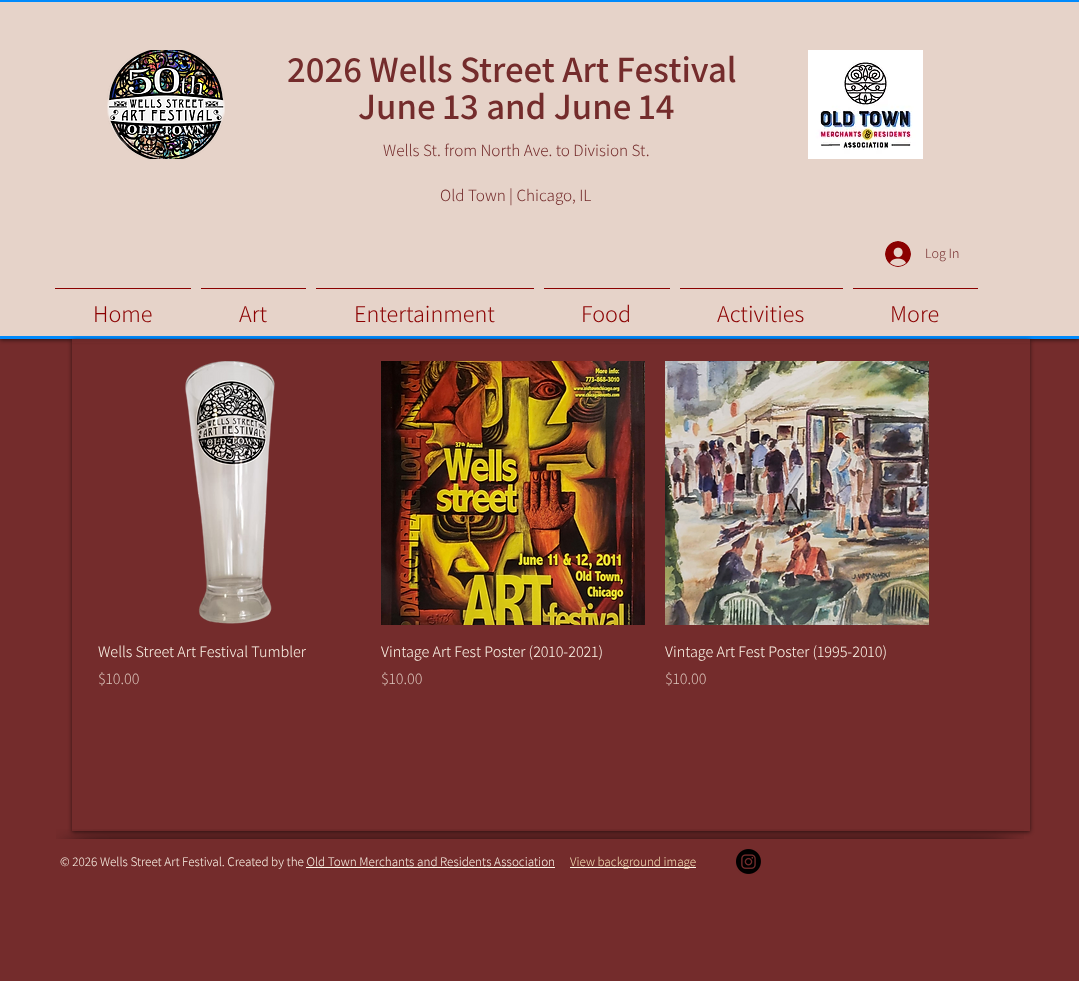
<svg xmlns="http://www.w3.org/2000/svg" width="1079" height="981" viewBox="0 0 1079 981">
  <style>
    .t1 { font: 600 37px Assistant; fill: #742c2c; }
    .t2 { font: 300 17px Assistant; fill: #742c2c; }
    .t3 { font: 300 14px Assistant; fill: #742c2c; }
    .t4 { font: 300 24px Assistant; fill: #8b0000; }
    .t5 { font: 300 16px Assistant; fill: #fff8eb; }
    .t6 { font: 300 16px Assistant; fill: #dcc5bb; }
    .t7 { font: 300 13px Assistant; fill: #fff8eb; }
    .t8 { font: 300 13px Assistant; fill: #f8e2b7; }
  </style>
  <defs>
    <clipPath id="clip1"><path d="M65 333H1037V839H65ZM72 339H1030V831H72Z" clip-rule="evenodd"/></clipPath>
  </defs>
  <rect width="100%" height="100%" fill="#742c2c"/>
  <rect x="0" y="1" width="1079" height="339" fill="#00000099" filter="blur(2px)"/>
  <rect x="0" y="0" width="1079" height="2" fill="#008afc"/>
  <rect x="0" y="336" width="1079" height="3" fill="#008afc"/>
  <rect x="0" y="2" width="1079" height="334" fill="#e6d3c9"/>
  <image x="107" y="50" width="118" height="109" href="images/1.png"/>
  <text x="287" y="82" class="t1">2026 Wells Street Art Festival</text>
  <text x="358" y="119" class="t1">June 13 and June 14</text>
  <text x="383" y="156" class="t2">Wells St. from North Ave. to Division St.</text>
  <text x="440" y="201" class="t2">Old Town | Chicago, IL</text>
  <image x="808" y="50" width="115" height="109" href="images/2.png"/>
  <image x="885" y="241" width="26" height="26" href="images/3.png"/>
  <text x="925" y="258" class="t3">Log In</text>
  <rect x="55" y="288" width="136" height="1" fill="#8b0000"/>
  <text x="93" y="322" class="t4">Home</text>
  <rect x="201" y="288" width="105" height="1" fill="#8b0000"/>
  <text x="239" y="322" class="t4">Art</text>
  <rect x="316" y="288" width="218" height="1" fill="#8b0000"/>
  <text x="354" y="322" class="t4">Entertainment</text>
  <rect x="544" y="288" width="126" height="1" fill="#8b0000"/>
  <text x="581" y="322" class="t4">Food</text>
  <rect x="680" y="288" width="163" height="1" fill="#8b0000"/>
  <text x="717" y="322" class="t4">Activities</text>
  <rect x="853" y="288" width="125" height="1" fill="#8b0000"/>
  <text x="890" y="322" class="t4">More</text>
  <g clip-path="url(#clip1)">
    <rect x="72" y="340" width="958" height="492" fill="#00000099" filter="blur(2px)"/>
  </g>
  <rect x="72" y="339" width="958" height="4" fill="#742c2cbf"/>
  <image x="185" y="361" width="90" height="263" href="images/4.png"/>
  <text x="98" y="657" class="t5">Wells Street Art Festival Tumbler</text>
  <text x="98" y="684" class="t6">$10.00</text>
  <image x="381" y="361" width="264" height="264" href="images/5.png"/>
  <text x="381" y="657" class="t5">Vintage Art Fest Poster (2010-2021)</text>
  <text x="381" y="684" class="t6">$10.00</text>
  <image x="665" y="361" width="264" height="264" href="images/6.png"/>
  <text x="665" y="657" class="t5">Vintage Art Fest Poster (1995-2010)</text>
  <text x="665" y="684" class="t6">$10.00</text>
  <image x="56" y="829" width="94" height="10" href="images/7.png"/>
  <image x="150" y="829" width="780" height="10" href="images/8.png"/>
  <image x="930" y="829" width="94" height="10" href="images/9.png"/>
  <text x="60" y="866" class="t7">© 2026 Wells Street Art Festival. Created by the Old Town Merchants and Residents Association</text>
  <rect x="306" y="867" width="249" height="1" fill="#fff8eb"/>
  <rect x="570" y="867" width="126" height="1" fill="#fff8eb"/>
  <text x="570" y="866" class="t8">View background image</text>
  <image x="736" y="849" width="25" height="25" href="images/10.png"/>
</svg>
